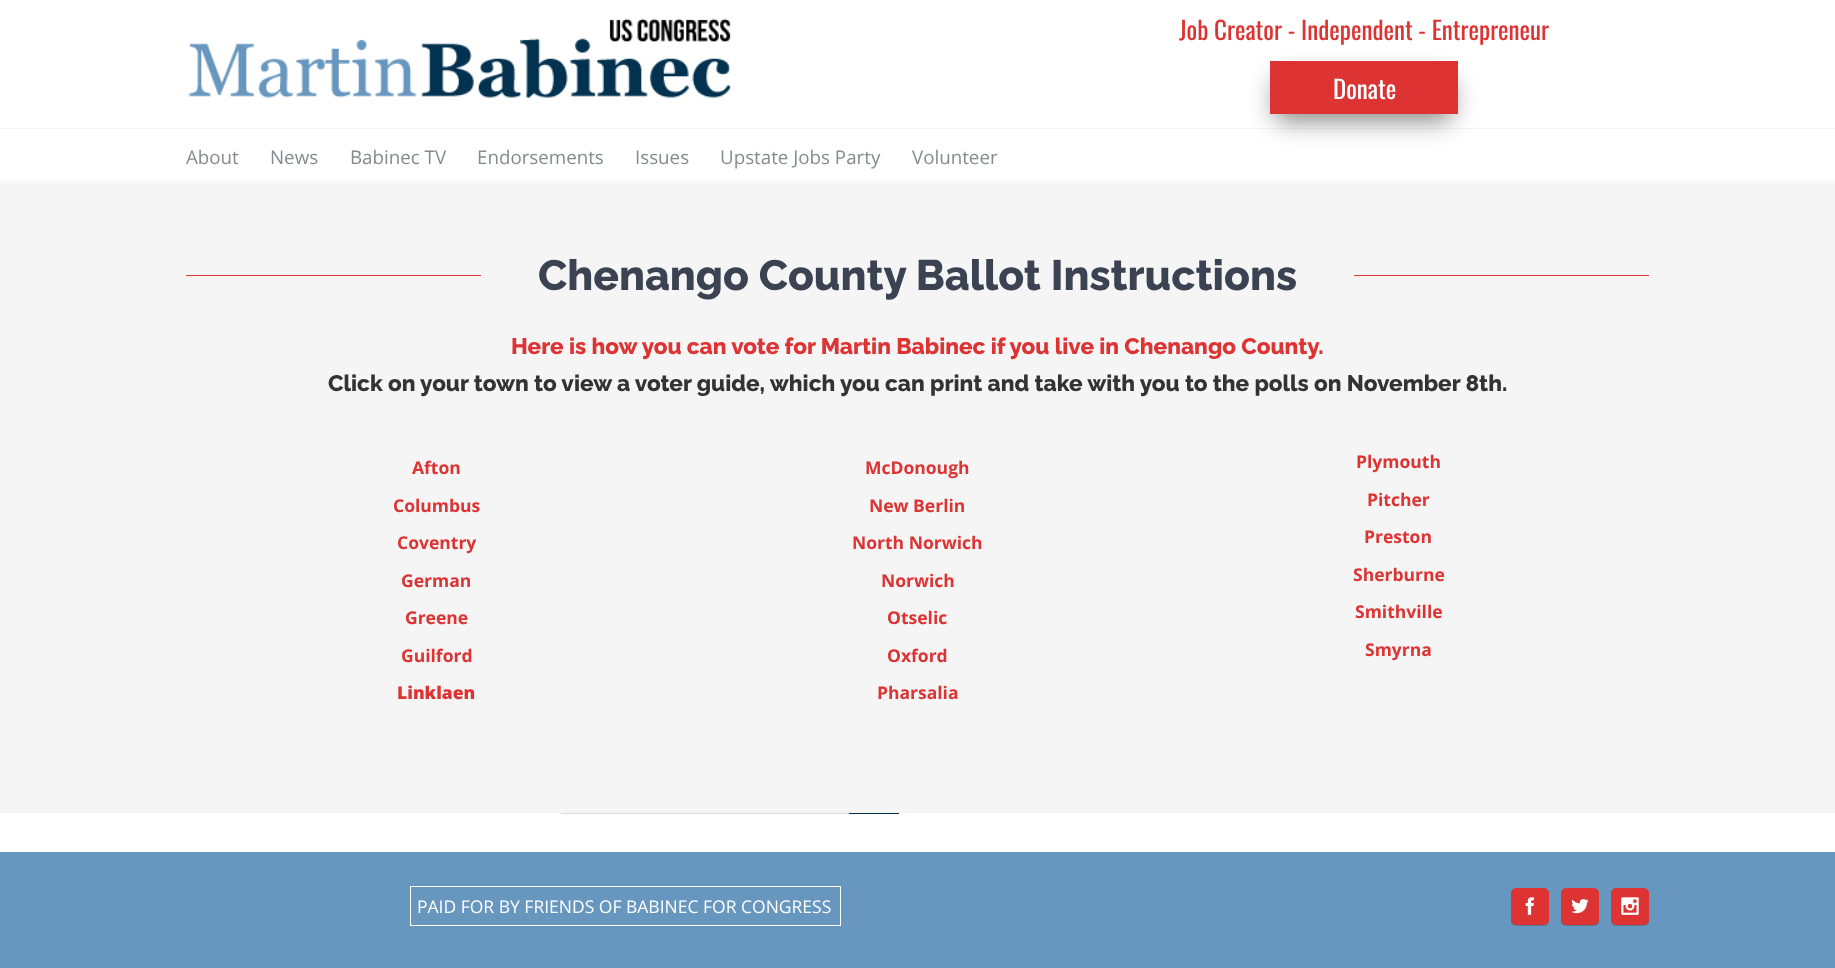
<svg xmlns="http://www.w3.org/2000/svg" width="1835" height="968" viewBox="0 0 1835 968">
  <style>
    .t1 { font: 25px Oswald; fill: #d33; }
    .t2 { font: 25px Oswald; fill: #fff; }
    .t3 { font: 18.75px Open Sans; fill: #848b8e; }
    .t4 { font: 800 42.5px Raleway; fill: #3b4251; }
    .t5 { font: 800 22.5px Raleway; fill: #d33; }
    .t6 { font: 800 22.5px Raleway; fill: #333; }
    .t7 { font: bold 17.5px Open Sans; fill: #d33; }
    .t8 { font: 800 17.5px Open Sans; fill: #d33; }
    .t9 { font: 17.5px Open Sans; fill: #fff; }
  </style>
  <rect width="100%" height="100%" fill="#fff"/>
  <rect x="0" y="128" width="1835" height="1" fill="#f5f5f5"/>
  <image x="188" y="18" width="543" height="81" href="images/1.png"/>
  <rect x="1276" y="80" width="175" height="40" fill="#00000080" filter="blur(13px)"/>
  <text x="1179" y="40" class="t1">Job Creator - Independent - Entrepreneur</text>
  <rect x="1270" y="61" width="188" height="53" fill="#d33"/>
  <text x="1333" y="99" class="t2">Donate</text>
  <rect x="0" y="181" width="1835" height="1" fill="#f5f5f5"/>
  <text x="186" y="164" class="t3">About</text>
  <text x="270" y="164" class="t3">News</text>
  <text x="350" y="164" class="t3">Babinec TV</text>
  <text x="477" y="164" class="t3">Endorsements</text>
  <text x="635" y="164" class="t3">Issues</text>
  <text x="720" y="164" class="t3">Upstate Jobs Party</text>
  <text x="912" y="164" class="t3">Volunteer</text>
  <rect x="561.5" y="764.5" width="287" height="49" fill="none" stroke="#dbdbdb"/>
  <rect x="0" y="183" width="1835" height="630" fill="#f5f5f5"/>
  <rect x="186" y="275" width="295" height="1" fill="#d33"/>
  <text x="538" y="290" class="t4">Chenango County Ballot Instructions</text>
  <rect x="1354" y="275" width="295" height="1" fill="#d33"/>
  <text x="511" y="354" class="t5">Here is how you can vote for Martin Babinec if you live in Chenango County.</text>
  <text x="328" y="391" class="t6">Click on your town to view a voter guide, which you can print and take with you to the polls on November 8th.</text>
  <text x="412" y="474" class="t7">Afton</text>
  <text x="393" y="512" class="t7">Columbus</text>
  <text x="397" y="549" class="t7">Coventry</text>
  <text x="401" y="587" class="t7">German</text>
  <text x="405" y="624" class="t7">Greene</text>
  <text x="401" y="662" class="t7">Guilford</text>
  <text x="397" y="699" class="t8">Linklaen</text>
  <text x="865" y="474" class="t7">McDonough</text>
  <text x="869" y="512" class="t7">New Berlin</text>
  <text x="852" y="549" class="t7">North Norwich</text>
  <text x="881" y="587" class="t7">Norwich</text>
  <text x="887" y="624" class="t7">Otselic</text>
  <text x="887" y="662" class="t7">Oxford</text>
  <text x="877" y="699" class="t7">Pharsalia</text>
  <text x="1356" y="468" class="t7">Plymouth</text>
  <text x="1367" y="506" class="t7">Pitcher</text>
  <text x="1364" y="543" class="t7">Preston</text>
  <text x="1353" y="581" class="t7">Sherburne</text>
  <text x="1355" y="618" class="t7">Smithville</text>
  <text x="1365" y="656" class="t7">Smyrna</text>
  <rect x="849" y="813" width="50" height="1" fill="#033250"/>
  <rect x="0" y="852" width="1835" height="116" fill="#6796bf"/>
  <rect x="410.5" y="886.5" width="430" height="39" fill="none" stroke="#fff"/>
  <text x="417" y="913" class="t9">PAID FOR BY FRIENDS OF BABINEC FOR CONGRESS</text>
  <rect x="1511" y="889" width="38" height="37" rx="5" fill="#00000033" filter="blur(0.5px)"/>
  <rect x="1511.5" y="888.5" width="37" height="36" rx="4.5" fill="#d33" stroke="#d33"/>
  <image x="1525" y="897" width="9" height="18" href="images/2.png"/>
  <rect x="1561" y="889" width="38" height="37" rx="5" fill="#00000033" filter="blur(0.5px)"/>
  <rect x="1561.5" y="888.5" width="37" height="36" rx="4.5" fill="#d33" stroke="#d33"/>
  <image x="1571" y="899" width="18" height="15" href="images/3.png"/>
  <rect x="1611" y="889" width="38" height="37" rx="5" fill="#00000033" filter="blur(0.5px)"/>
  <rect x="1611.5" y="888.5" width="37" height="36" rx="4.5" fill="#d33" stroke="#d33"/>
  <image x="1621" y="897" width="18" height="18" href="images/4.png"/>
</svg>
